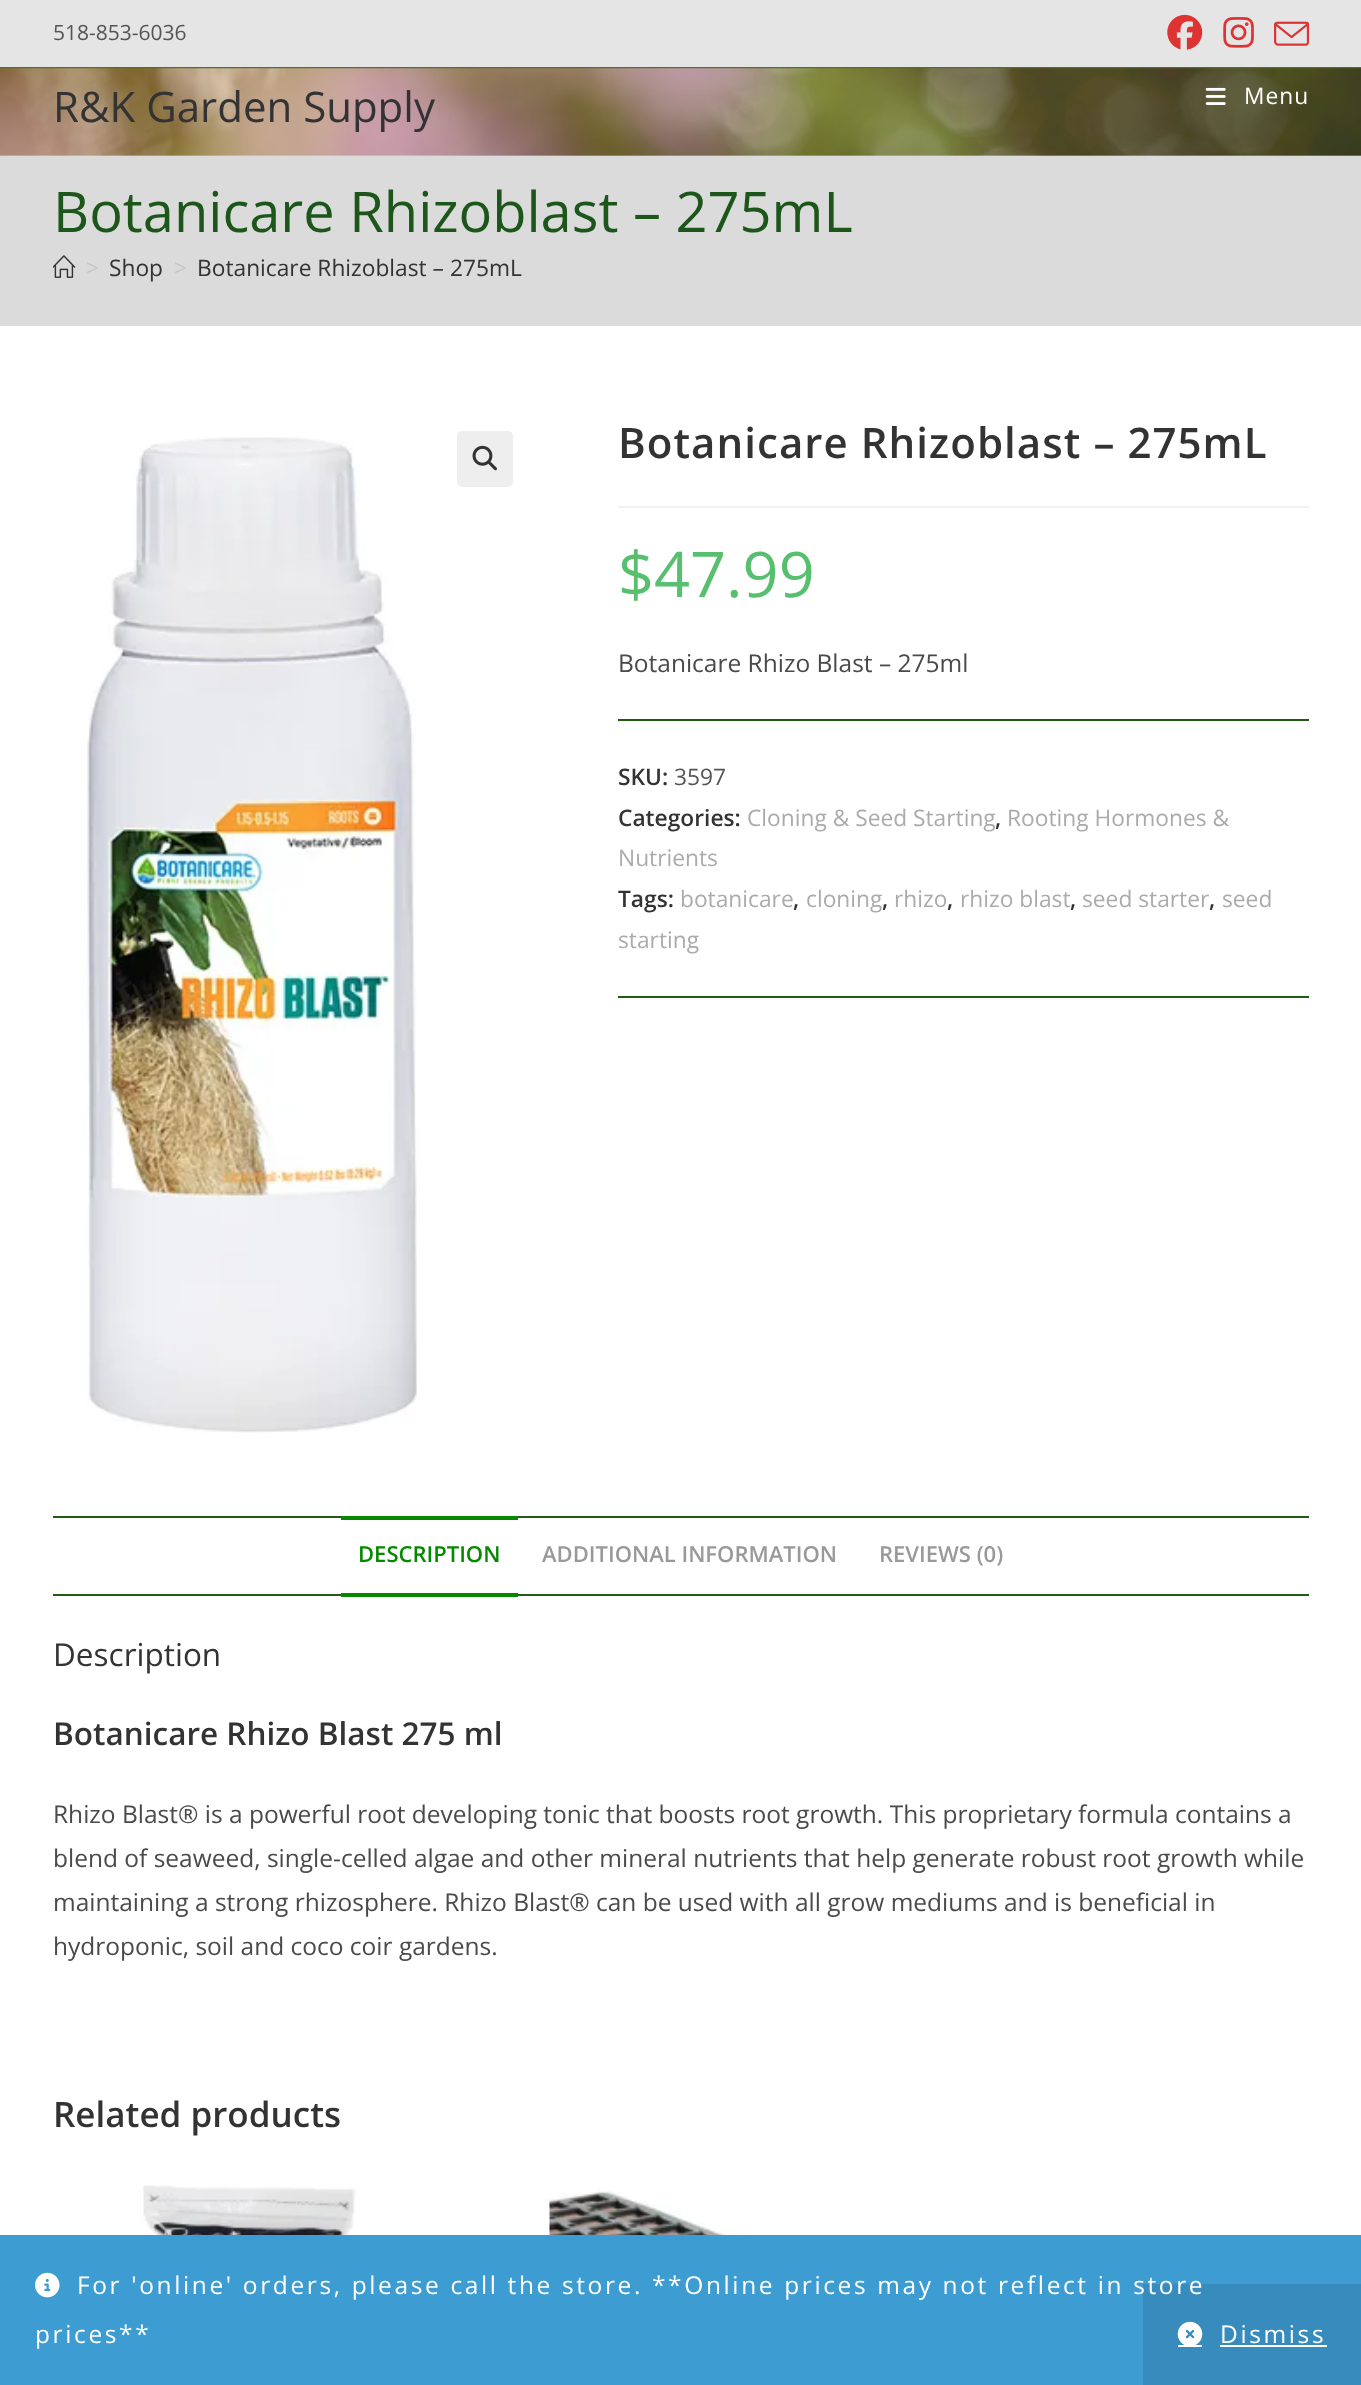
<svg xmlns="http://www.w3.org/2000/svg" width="1361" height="2385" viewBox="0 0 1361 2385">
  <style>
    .t1 { font: 21px Open Sans; fill: #555; }
    .t2 { font: 42px Open Sans; fill: #333; }
    .t3 { font: 22.75px Open Sans; letter-spacing: 1.05px; fill: #fff; }
    .t4 { font: 56px Open Sans; fill: #1d561a; }
    .t5 { font: 22.75px Open Sans; fill: #c6c6c6; }
    .t6 { font: 22.75px Open Sans; fill: #333; }
    .t7 { font: 600 42px Open Sans; letter-spacing: 1.05px; fill: #333; }
    .t8 { font: 63px Open Sans; fill: #57bf6d; }
    .t9 { font: 24.5px Open Sans; fill: #4a4a4a; }
    .t10 { font: 600 22.75px Open Sans; fill: #333; }
    .t11 { font: 22.75px Open Sans; fill: #555; }
    .t12 { font: 22.75px Open Sans; fill: #ababab; }
    .t13 { font: 600 22px Open Sans; fill: #068900; }
    .t14 { font: 600 22px Open Sans; fill: #999; }
    .t15 { font: 31.5px Open Sans; fill: #333; }
    .t16 { font: 600 31.5px Open Sans; fill: #333; }
    .t17 { font: 600 35px Open Sans; fill: #333; }
    .t18 { font: 24.5px Open Sans; letter-spacing: 2.62px; fill: #fff; }
  </style>
  <rect width="100%" height="100%" fill="#fff"/>
  <rect x="0" y="0" width="1361" height="67" fill="#e5e5e5"/>
  <rect x="0" y="67" width="1361" height="2" fill="#417a22"/>
  <text x="53" y="40" class="t1">518-853-6036</text>
  <image x="1167" y="14" width="36" height="36" href="images/1.png"/>
  <image x="1223" y="17" width="31" height="31" href="images/2.png"/>
  <image x="1274" y="21" width="36" height="25" href="images/3.png"/>
  <image x="0" y="68" width="1361" height="88" href="images/4.png"/>
  <text x="53" y="122" class="t2">R&amp;K Garden Supply</text>
  <image x="1205" y="87" width="21" height="18" href="images/5.png"/>
  <text x="1244" y="104" class="t3">Menu</text>
  <rect x="0" y="156" width="1361" height="170" fill="#dbdbdb"/>
  <text x="53" y="232" class="t4">Botanicare Rhizoblast – 275mL</text>
  <image x="53" y="255" width="23" height="23" href="images/6.png"/>
  <text x="86" y="276" class="t5">&gt;</text>
  <text x="109" y="276" class="t6">Shop</text>
  <text x="174" y="276" class="t5">&gt;</text>
  <text x="197" y="276" class="t6">Botanicare Rhizoblast – 275mL</text>
  <image x="81" y="437" width="336" height="996" href="images/7.png"/>
  <rect x="457" y="431" width="56" height="56" rx="5" fill="#eee"/>
  <image x="472" y="445" width="25" height="26" href="images/8.png"/>
  <rect x="618" y="506" width="691" height="2" fill="#f1f1f1"/>
  <text x="618" y="458" class="t7">Botanicare Rhizoblast – 275mL</text>
  <text x="618" y="597" class="t8">$47.99</text>
  <text x="618" y="672" class="t9">Botanicare Rhizo Blast – 275ml</text>
  <rect x="618" y="719" width="691" height="2" fill="#235b14"/>
  <rect x="618" y="996" width="691" height="2" fill="#235b14"/>
  <text x="618" y="785" class="t10">SKU:</text>
  <text x="674" y="785" class="t11">3597</text>
  <text x="618" y="826" class="t10">Categories:</text>
  <text x="747" y="826" class="t12">Cloning &amp; Seed Starting</text>
  <text x="995" y="826" class="t10">,</text>
  <text x="1007" y="826" class="t12">Rooting Hormones &amp;</text>
  <text x="618" y="866" class="t12">Nutrients</text>
  <text x="618" y="907" class="t10">Tags:</text>
  <text x="680" y="907" class="t12">botanicare</text>
  <text x="793" y="907" class="t10">,</text>
  <text x="806" y="907" class="t12">cloning</text>
  <text x="882" y="907" class="t10">,</text>
  <text x="894" y="907" class="t12">rhizo</text>
  <text x="947" y="907" class="t10">,</text>
  <text x="960" y="907" class="t12">rhizo blast</text>
  <text x="1070" y="907" class="t10">,</text>
  <text x="1082" y="907" class="t12">seed starter</text>
  <text x="1209" y="907" class="t10">,</text>
  <text x="1222" y="907" class="t12">seed</text>
  <text x="618" y="948" class="t12">starting</text>
  <rect x="53" y="1516" width="1256" height="2" fill="#235b14"/>
  <rect x="53" y="1594" width="1256" height="2" fill="#235b14"/>
  <rect x="341" y="1516" width="177" height="4" fill="#068900"/>
  <rect x="341" y="1593" width="177" height="4" fill="#068900"/>
  <text x="358" y="1562" class="t13">DESCRIPTION</text>
  <text x="542" y="1562" class="t14">ADDITIONAL INFORMATION</text>
  <text x="879" y="1562" class="t14">REVIEWS (0)</text>
  <text x="53" y="1666" class="t15">Description</text>
  <text x="53" y="1745" class="t16">Botanicare Rhizo Blast 275 ml</text>
  <text x="53" y="1823" class="t9">Rhizo Blast® is a powerful root developing tonic that boosts root growth. This proprietary formula contains a</text>
  <text x="53" y="1867" class="t9">blend of seaweed, single-celled algae and other mineral nutrients that help generate robust root growth while</text>
  <text x="53" y="1911" class="t9">maintaining a strong rhizosphere. Rhizo Blast® can be used with all grow mediums and is beneficial in</text>
  <text x="53" y="1955" class="t9">hydroponic, soil and coco coir gardens.</text>
  <text x="53" y="2127" class="t17">Related products</text>
  <image x="142" y="2185" width="215" height="50" href="images/9.png"/>
  <image x="549" y="2190" width="263" height="45" href="images/10.png"/>
  <rect x="0" y="2235" width="1361" height="150" fill="#3d9cd2"/>
  <image x="35" y="2272" width="25" height="26" href="images/11.png"/>
  <rect x="1143" y="2284" width="218" height="101" fill="#378cbd"/>
  <text x="77" y="2294" class="t18">For 'online' orders, please call the store. **Online prices may not reflect in store</text>
  <text x="35" y="2343" class="t18">prices**</text>
  <image x="1177" y="2321" width="26" height="24" href="images/12.png"/>
  <text x="1220" y="2343" class="t18">Dismiss</text>
  <rect x="1220" y="2345" width="107" height="2" fill="#fff"/>
  <rect x="1178" y="2345" width="24" height="2" fill="#fff"/>
</svg>
